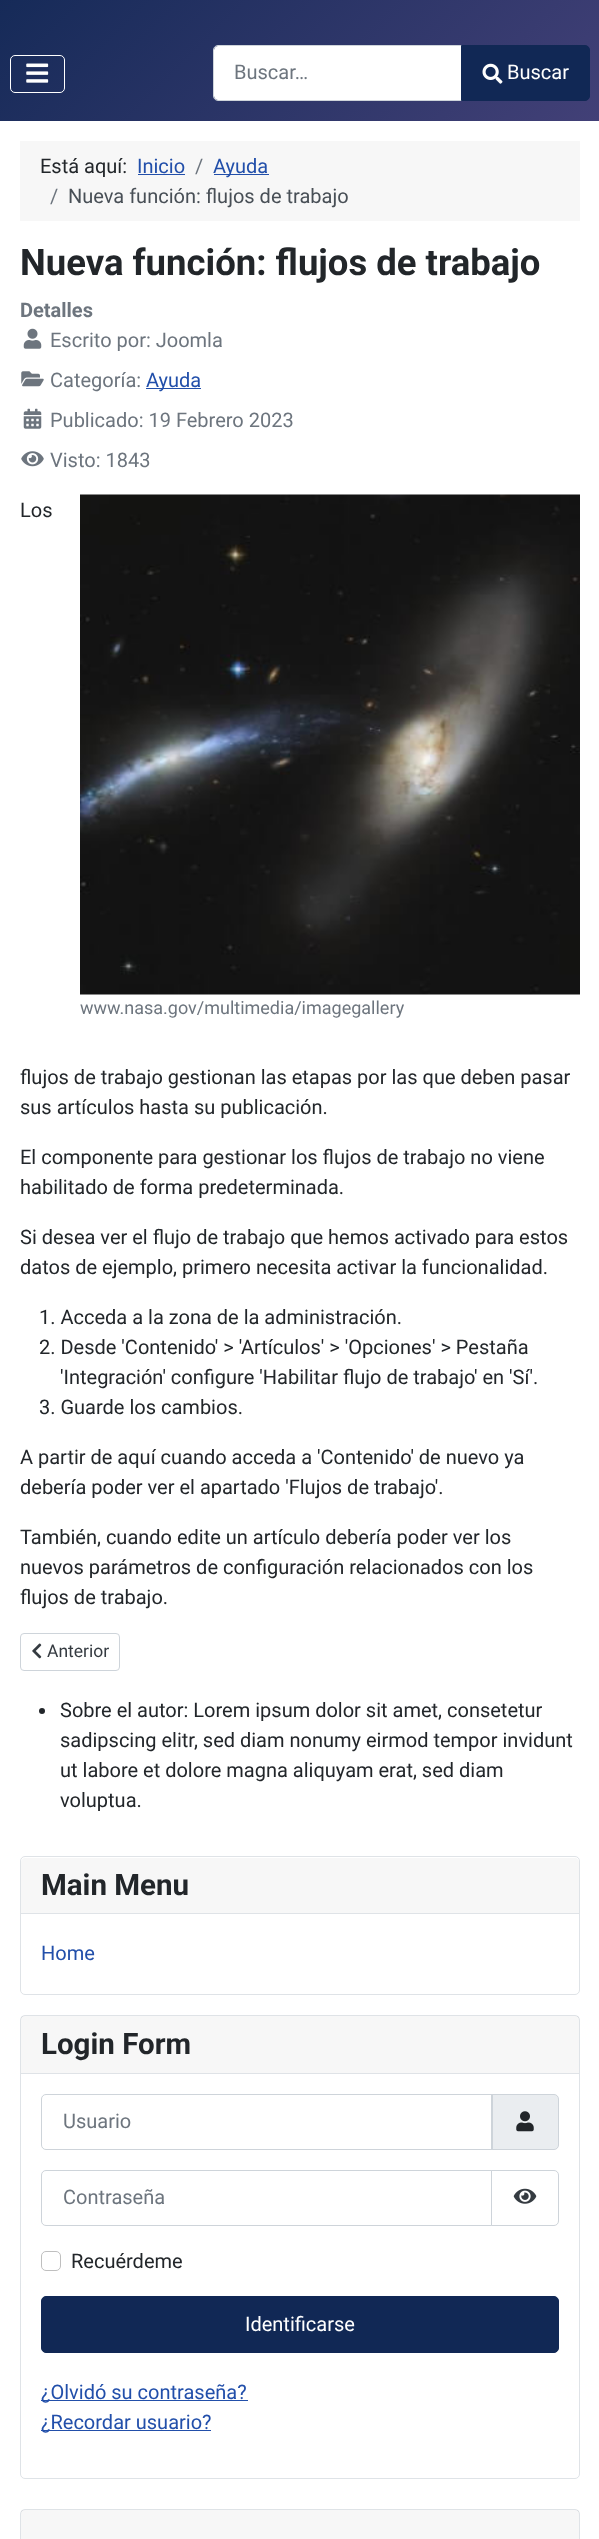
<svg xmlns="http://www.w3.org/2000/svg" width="599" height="2539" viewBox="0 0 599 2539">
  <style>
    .t1 { font: 20px Roboto; fill: #6d757e; }
    .t2 { font: 20px Roboto; fill: #fff; }
    .t3 { font: 20px Roboto; fill: #22262a; }
    .t4 { font: 20px Roboto; fill: #224faa; }
    .t5 { font: 20px Roboto; fill: #484f56; }
    .t6 { font: bold 36.5px Roboto; fill: #22262a; }
    .t7 { font: bold 20px Roboto; fill: #6d757e; }
    .t8 { font: 18px Roboto; fill: #6d757e; }
    .t9 { font: 17.5px Roboto; fill: #353b41; }
    .t10 { font: bold 29.5px Roboto; fill: #22262a; }
  </style>
  <defs>
    <linearGradient id="g1" gradientUnits="userSpaceOnUse" x1="100" y1="-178" x2="500" y2="222"><stop offset="0" stop-color="#112855"/><stop offset="1" stop-color="#424077"/></linearGradient>
  </defs>
  <rect width="100%" height="100%" fill="#fff"/>
  <rect x="0" y="0" width="599" height="121" fill="url(#g1)"/>
  <rect x="10.5" y="55.5" width="54" height="37" rx="4.5" fill="none" stroke="#fff"/>
  <image x="26" y="63" width="23" height="20" href="images/1.png"/>
  <path d="M218 46H461V100H218C216 100 214 98 214 96V50C214 48 216 46 218 46Z" fill="#fff"/>
  <path d="M218 45.5H462.5V100.5H218C215.5 100.5 213.5 98.5 213.5 96V50C213.5 47.5 215.5 45.5 218 45.5Z" fill="none" stroke="#ced4da"/>
  <text x="234" y="79" class="t1">Buscar…</text>
  <path d="M461.5 45.5H585C587.5 45.5 589.5 47.5 589.5 50V96C589.5 98.5 587.5 100.5 585 100.5H461.5Z" fill="#112855" stroke="#112855"/>
  <image x="482" y="63" width="21" height="21" href="images/2.png"/>
  <text x="507" y="79" class="t2">Buscar</text>
  <rect x="20" y="141" width="560" height="80" fill="#f7f7f7"/>
  <text x="40" y="173" class="t3">Está aquí:</text>
  <text x="137" y="173" class="t4">Inicio</text>
  <rect x="138" y="174" width="47" height="1" fill="#224faa"/>
  <text x="195" y="173" class="t1">/</text>
  <rect x="214" y="174" width="55" height="1" fill="#224faa"/>
  <text x="213" y="173" class="t4">Ayuda</text>
  <text x="50" y="203" class="t1">/</text>
  <text x="68" y="203" class="t5">Nueva función: flujos de trabajo</text>
  <text x="20" y="275" class="t6">Nueva función: flujos de trabajo</text>
  <text x="20" y="317" class="t7">Detalles</text>
  <image x="23" y="328" width="19" height="21" href="images/3.png"/>
  <text x="50" y="347" class="t1">Escrito por: Joomla</text>
  <image x="21" y="371" width="23" height="16" href="images/4.png"/>
  <text x="50" y="387" class="t1">Categoría:</text>
  <rect x="146" y="388" width="55" height="1" fill="#224faa"/>
  <text x="146" y="387" class="t4">Ayuda</text>
  <image x="23" y="408" width="19" height="21" href="images/5.png"/>
  <text x="50" y="427" class="t1">Publicado: 19 Febrero 2023</text>
  <image x="21" y="451" width="23" height="16" href="images/6.png"/>
  <text x="50" y="467" class="t1">Visto: 1843</text>
  <text x="20" y="517" class="t3">Los</text>
  <text x="20" y="1084" class="t3">flujos de trabajo gestionan las etapas por las que deben pasar</text>
  <text x="20" y="1114" class="t3">sus artículos hasta su publicación.</text>
  <text x="20" y="1164" class="t3">El componente para gestionar los flujos de trabajo no viene</text>
  <text x="20" y="1194" class="t3">habilitado de forma predeterminada.</text>
  <text x="20" y="1244" class="t3">Si desea ver el flujo de trabajo que hemos activado para estos</text>
  <text x="20" y="1274" class="t3">datos de ejemplo, primero necesita activar la funcionalidad.</text>
  <text x="39" y="1324" class="t3">1. Acceda a la zona de la administración.</text>
  <text x="39" y="1354" class="t3">2. Desde 'Contenido' &gt; 'Artículos' &gt; 'Opciones' &gt; Pestaña</text>
  <text x="60" y="1384" class="t3">'Integración' configure 'Habilitar flujo de trabajo' en 'Sí'.</text>
  <text x="39" y="1414" class="t3">3. Guarde los cambios.</text>
  <text x="20" y="1464" class="t3">A partir de aquí cuando acceda a 'Contenido' de nuevo ya</text>
  <text x="20" y="1494" class="t3">debería poder ver el apartado 'Flujos de trabajo'.</text>
  <text x="20" y="1544" class="t3">También, cuando edite un artículo debería poder ver los</text>
  <text x="20" y="1574" class="t3">nuevos parámetros de configuración relacionados con los</text>
  <text x="20" y="1604" class="t3">flujos de trabajo.</text>
  <image x="80" y="494" width="500" height="501" href="images/7.png"/>
  <text x="80" y="1014" class="t8">www.nasa.gov/multimedia/imagegallery</text>
  <rect x="20.5" y="1633.5" width="99" height="37" rx="3.5" fill="none" stroke="#ced4da"/>
  <image x="32" y="1643" width="10" height="16" href="images/8.png"/>
  <text x="47" y="1657" class="t9">Anterior</text>
  <circle cx="42" cy="1711" r="3" fill="#22262a"/>
  <text x="60" y="1717" class="t3">Sobre el autor: Lorem ipsum dolor sit amet, consetetur</text>
  <text x="60" y="1747" class="t3">sadipscing elitr, sed diam nonumy eirmod tempor invidunt</text>
  <text x="60" y="1777" class="t3">ut labore et dolore magna aliquyam erat, sed diam</text>
  <text x="60" y="1807" class="t3">voluptua.</text>
  <rect x="20.5" y="1856.5" width="559" height="138" rx="4.5" fill="none" stroke="#dfe3e7"/>
  <path d="M25 1858H575C577 1858 579 1860 579 1862V1914H21V1862C21 1860 23 1858 25 1858Z" fill="#f7f7f7"/>
  <rect x="21" y="1913" width="558" height="1" fill="#dfe3e7"/>
  <text x="41" y="1895" class="t10">Main Menu</text>
  <text x="41" y="1960" class="t4">Home</text>
  <rect x="20.5" y="2015.5" width="559" height="463" rx="4.5" fill="none" stroke="#dfe3e7"/>
  <rect x="21" y="2016" width="558" height="57" fill="#00000008"/>
  <rect x="21" y="2073" width="558" height="1" fill="#dfe3e7"/>
  <text x="41" y="2054" class="t10">Login Form</text>
  <path d="M491.5 2094.5H554C556.5 2094.5 558.5 2096.5 558.5 2099V2145C558.5 2147.5 556.5 2149.5 554 2149.5H491.5Z" fill="#eaedf0" stroke="#ced4da"/>
  <path d="M46 2094.5H492.5V2149.5H46C43.5 2149.5 41.5 2147.5 41.5 2145V2099C41.5 2096.5 43.5 2094.5 46 2094.5Z" fill="none" stroke="#ced4da"/>
  <text x="63" y="2128" class="t1">Usuario</text>
  <image x="516" y="2111" width="18" height="21" href="images/9.png"/>
  <path d="M46 2170.5H492.5V2225.5H46C43.5 2225.5 41.5 2223.5 41.5 2221V2175C41.5 2172.5 43.5 2170.5 46 2170.5Z" fill="none" stroke="#ced4da"/>
  <text x="63" y="2204" class="t1">Contraseña</text>
  <path d="M491.5 2170.5H554C556.5 2170.5 558.5 2172.5 558.5 2175V2221C558.5 2223.5 556.5 2225.5 554 2225.5H491.5Z" fill="#fff" stroke="#ced4da"/>
  <image x="513" y="2188" width="24" height="16" href="images/10.png"/>
  <rect x="41.5" y="2251.5" width="19" height="19" rx="4.5" fill="none" stroke="#bfbfbf"/>
  <text x="71" y="2268" class="t3">Recuérdeme</text>
  <rect x="41.5" y="2296.5" width="517" height="56" rx="4.5" fill="#112855" stroke="#112855"/>
  <text x="245" y="2331" class="t2">Identificarse</text>
  <rect x="41" y="2400" width="207" height="1" fill="#224faa"/>
  <text x="41" y="2399" class="t4">¿Olvidó su contraseña?</text>
  <rect x="41" y="2430" width="170" height="1" fill="#224faa"/>
  <text x="41" y="2429" class="t4">¿Recordar usuario?</text>
  <rect x="20.5" y="2509.5" width="559" height="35" rx="4.5" fill="none" stroke="#dfe3e7"/>
  <rect x="21" y="2510" width="558" height="29" fill="#00000008"/>
</svg>
